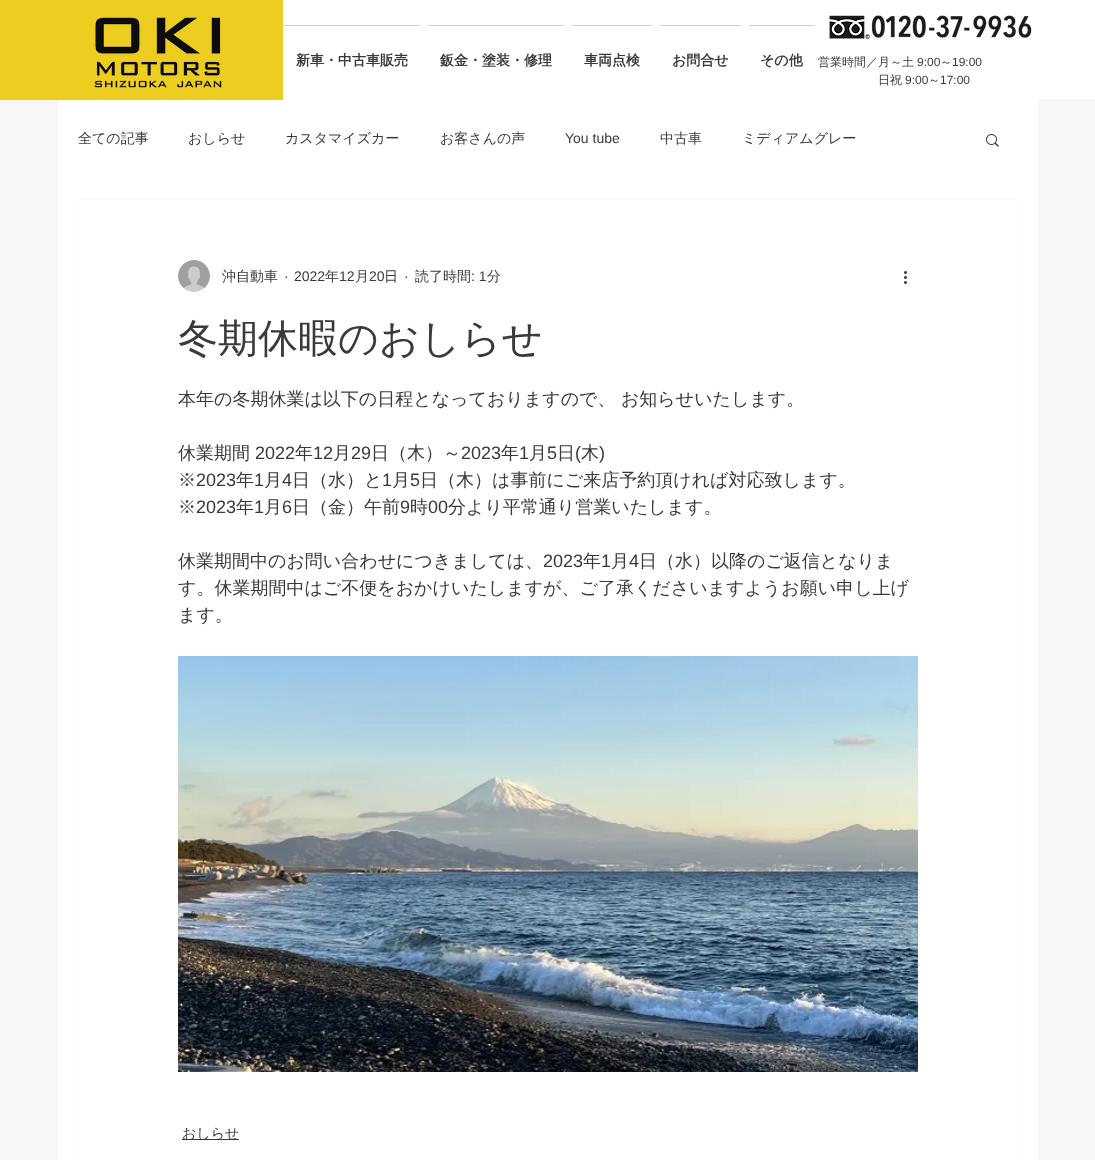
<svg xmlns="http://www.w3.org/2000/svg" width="1095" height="1160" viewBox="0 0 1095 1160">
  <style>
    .t1 { font: bold 14px WenQuanYi Zen Hei; fill: #3b3a3a; }
    .t2 { font: 500 12px WenQuanYi Zen Hei; fill: #3b3a3a; }
    .t3 { font: 12px Liberation Sans; fill: #3b3a3a; }
    .t4 { font: 500 14px WenQuanYi Zen Hei; fill: #3b3a3a; }
    .t5 { font: 14px Liberation Sans; fill: #3b3a3a; }
    .t6 { font: 500 40px WenQuanYi Zen Hei; fill: #3b3a3a; }
    .t7 { font: 500 18px WenQuanYi Zen Hei; fill: #3b3a3a; }
    .t8 { font: 18px Liberation Sans; fill: #3b3a3a; }
  </style>
  <rect width="100%" height="100%" fill="#f7f7f7"/>
  <rect x="58" y="99" width="980" height="1061" fill="#fff"/>
  <rect x="0" y="0" width="283" height="100" fill="#edcd1f"/>
  <image x="94" y="17" width="128" height="71" href="images/1.png"/>
  <rect x="283" y="0" width="812" height="99" fill="#fff"/>
  <image x="829" y="15" width="203" height="25" href="images/2.png"/>
  <rect x="284" y="25" width="136" height="1" fill="#c0d2e5"/>
  <text x="296" y="65" class="t1">新車・中古車販売</text>
  <rect x="428" y="25" width="136" height="1" fill="#c0d2e5"/>
  <text x="440" y="65" class="t1">鈑金・塗装・修理</text>
  <rect x="572" y="25" width="80" height="1" fill="#c0d2e5"/>
  <text x="584" y="65" class="t1">車両点検</text>
  <rect x="660" y="25" width="81" height="1" fill="#c0d2e5"/>
  <text x="672" y="65" class="t1">お問合せ</text>
  <rect x="749" y="25" width="66" height="1" fill="#c0d2e5"/>
  <text x="760" y="65" class="t1">その他</text>
  <text x="818" y="66" class="t2">営業時間／月～土</text>
  <text x="917" y="66" class="t3">9:00</text>
  <text x="940" y="66" class="t2">～</text>
  <text x="952" y="66" class="t3">19:00</text>
  <text x="878" y="84" class="t2">日祝</text>
  <text x="905" y="84" class="t3">9:00</text>
  <text x="928" y="84" class="t2">～</text>
  <text x="940" y="84" class="t3">17:00</text>
  <text x="78" y="143" class="t4">全ての記事</text>
  <text x="188" y="143" class="t4">おしらせ</text>
  <text x="285" y="143" class="t4">カスタマイズカー</text>
  <text x="440" y="143" class="t4">お客さんの声</text>
  <text x="565" y="143" class="t5">You tube</text>
  <text x="660" y="143" class="t4">中古車</text>
  <text x="742" y="143" class="t4">ミディアムグレー</text>
  <image x="986" y="134" width="13" height="13" href="images/3.png"/>
  <rect x="78.5" y="199.5" width="939" height="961" fill="none" stroke="#f9f9f9"/>
  <image x="178" y="260" width="32" height="32" href="images/4.png"/>
  <text x="222" y="281" class="t4">沖自動車</text>
  <text x="284" y="281" class="t5">·</text>
  <text x="294" y="281" class="t5">2022</text>
  <text x="325" y="281" class="t4">年</text>
  <text x="339" y="281" class="t5">12</text>
  <text x="355" y="281" class="t4">月</text>
  <text x="369" y="281" class="t5">20</text>
  <text x="384" y="281" class="t4">日</text>
  <text x="404" y="281" class="t5">·</text>
  <text x="415" y="281" class="t4">読了時間</text>
  <text x="471" y="281" class="t5">: 1</text>
  <text x="487" y="281" class="t4">分</text>
  <image x="904" y="271" width="3" height="13" href="images/5.png"/>
  <text x="178" y="352" class="t6">冬期休暇のおしらせ</text>
  <text x="178" y="405" class="t7">本年の冬期休業は以下の日程となっておりますので、 お知らせいたします。</text>
  <text x="178" y="459" class="t7">休業期間</text>
  <text x="255" y="459" class="t8">2022</text>
  <text x="295" y="459" class="t7">年</text>
  <text x="313" y="459" class="t8">12</text>
  <text x="333" y="459" class="t7">月</text>
  <text x="351" y="459" class="t8">29</text>
  <text x="371" y="459" class="t7">日（木）～</text>
  <text x="461" y="459" class="t8">2023</text>
  <text x="501" y="459" class="t7">年</text>
  <text x="519" y="459" class="t8">1</text>
  <text x="529" y="459" class="t7">月</text>
  <text x="547" y="459" class="t8">5</text>
  <text x="557" y="459" class="t7">日</text>
  <text x="575" y="459" class="t8">(</text>
  <text x="581" y="459" class="t7">木</text>
  <text x="599" y="459" class="t8">)</text>
  <text x="178" y="486" class="t7">※</text>
  <text x="196" y="486" class="t8">2023</text>
  <text x="236" y="486" class="t7">年</text>
  <text x="254" y="486" class="t8">1</text>
  <text x="264" y="486" class="t7">月</text>
  <text x="282" y="486" class="t8">4</text>
  <text x="292" y="486" class="t7">日（水）と</text>
  <text x="382" y="486" class="t8">1</text>
  <text x="392" y="486" class="t7">月</text>
  <text x="410" y="486" class="t8">5</text>
  <text x="420" y="486" class="t7">日（木）は事前にご来店予約頂ければ対応致します。</text>
  <text x="178" y="513" class="t7">※</text>
  <text x="196" y="513" class="t8">2023</text>
  <text x="236" y="513" class="t7">年</text>
  <text x="254" y="513" class="t8">1</text>
  <text x="264" y="513" class="t7">月</text>
  <text x="282" y="513" class="t8">6</text>
  <text x="292" y="513" class="t7">日（金）午前</text>
  <text x="400" y="513" class="t8">9</text>
  <text x="410" y="513" class="t7">時</text>
  <text x="428" y="513" class="t8">00</text>
  <text x="448" y="513" class="t7">分より平常通り営業いたします。</text>
  <text x="178" y="567" class="t7">休業期間中のお問い合わせにつきましては、</text>
  <text x="543" y="567" class="t8">2023</text>
  <text x="583" y="567" class="t7">年</text>
  <text x="601" y="567" class="t8">1</text>
  <text x="611" y="567" class="t7">月</text>
  <text x="629" y="567" class="t8">4</text>
  <text x="639" y="567" class="t7">日（水）以降のご返信となりま</text>
  <text x="178" y="594" class="t7">す。休業期間中はご不便をおかけいたしますが、ご了承くださいますようお願い申し上げ</text>
  <text x="178" y="621" class="t7">ます。</text>
  <image x="178" y="656" width="740" height="416" href="images/6.png"/>
  <rect x="182" y="1139" width="57" height="1" fill="#3b3a3a"/>
  <text x="182" y="1138" class="t4">おしらせ</text>
</svg>
